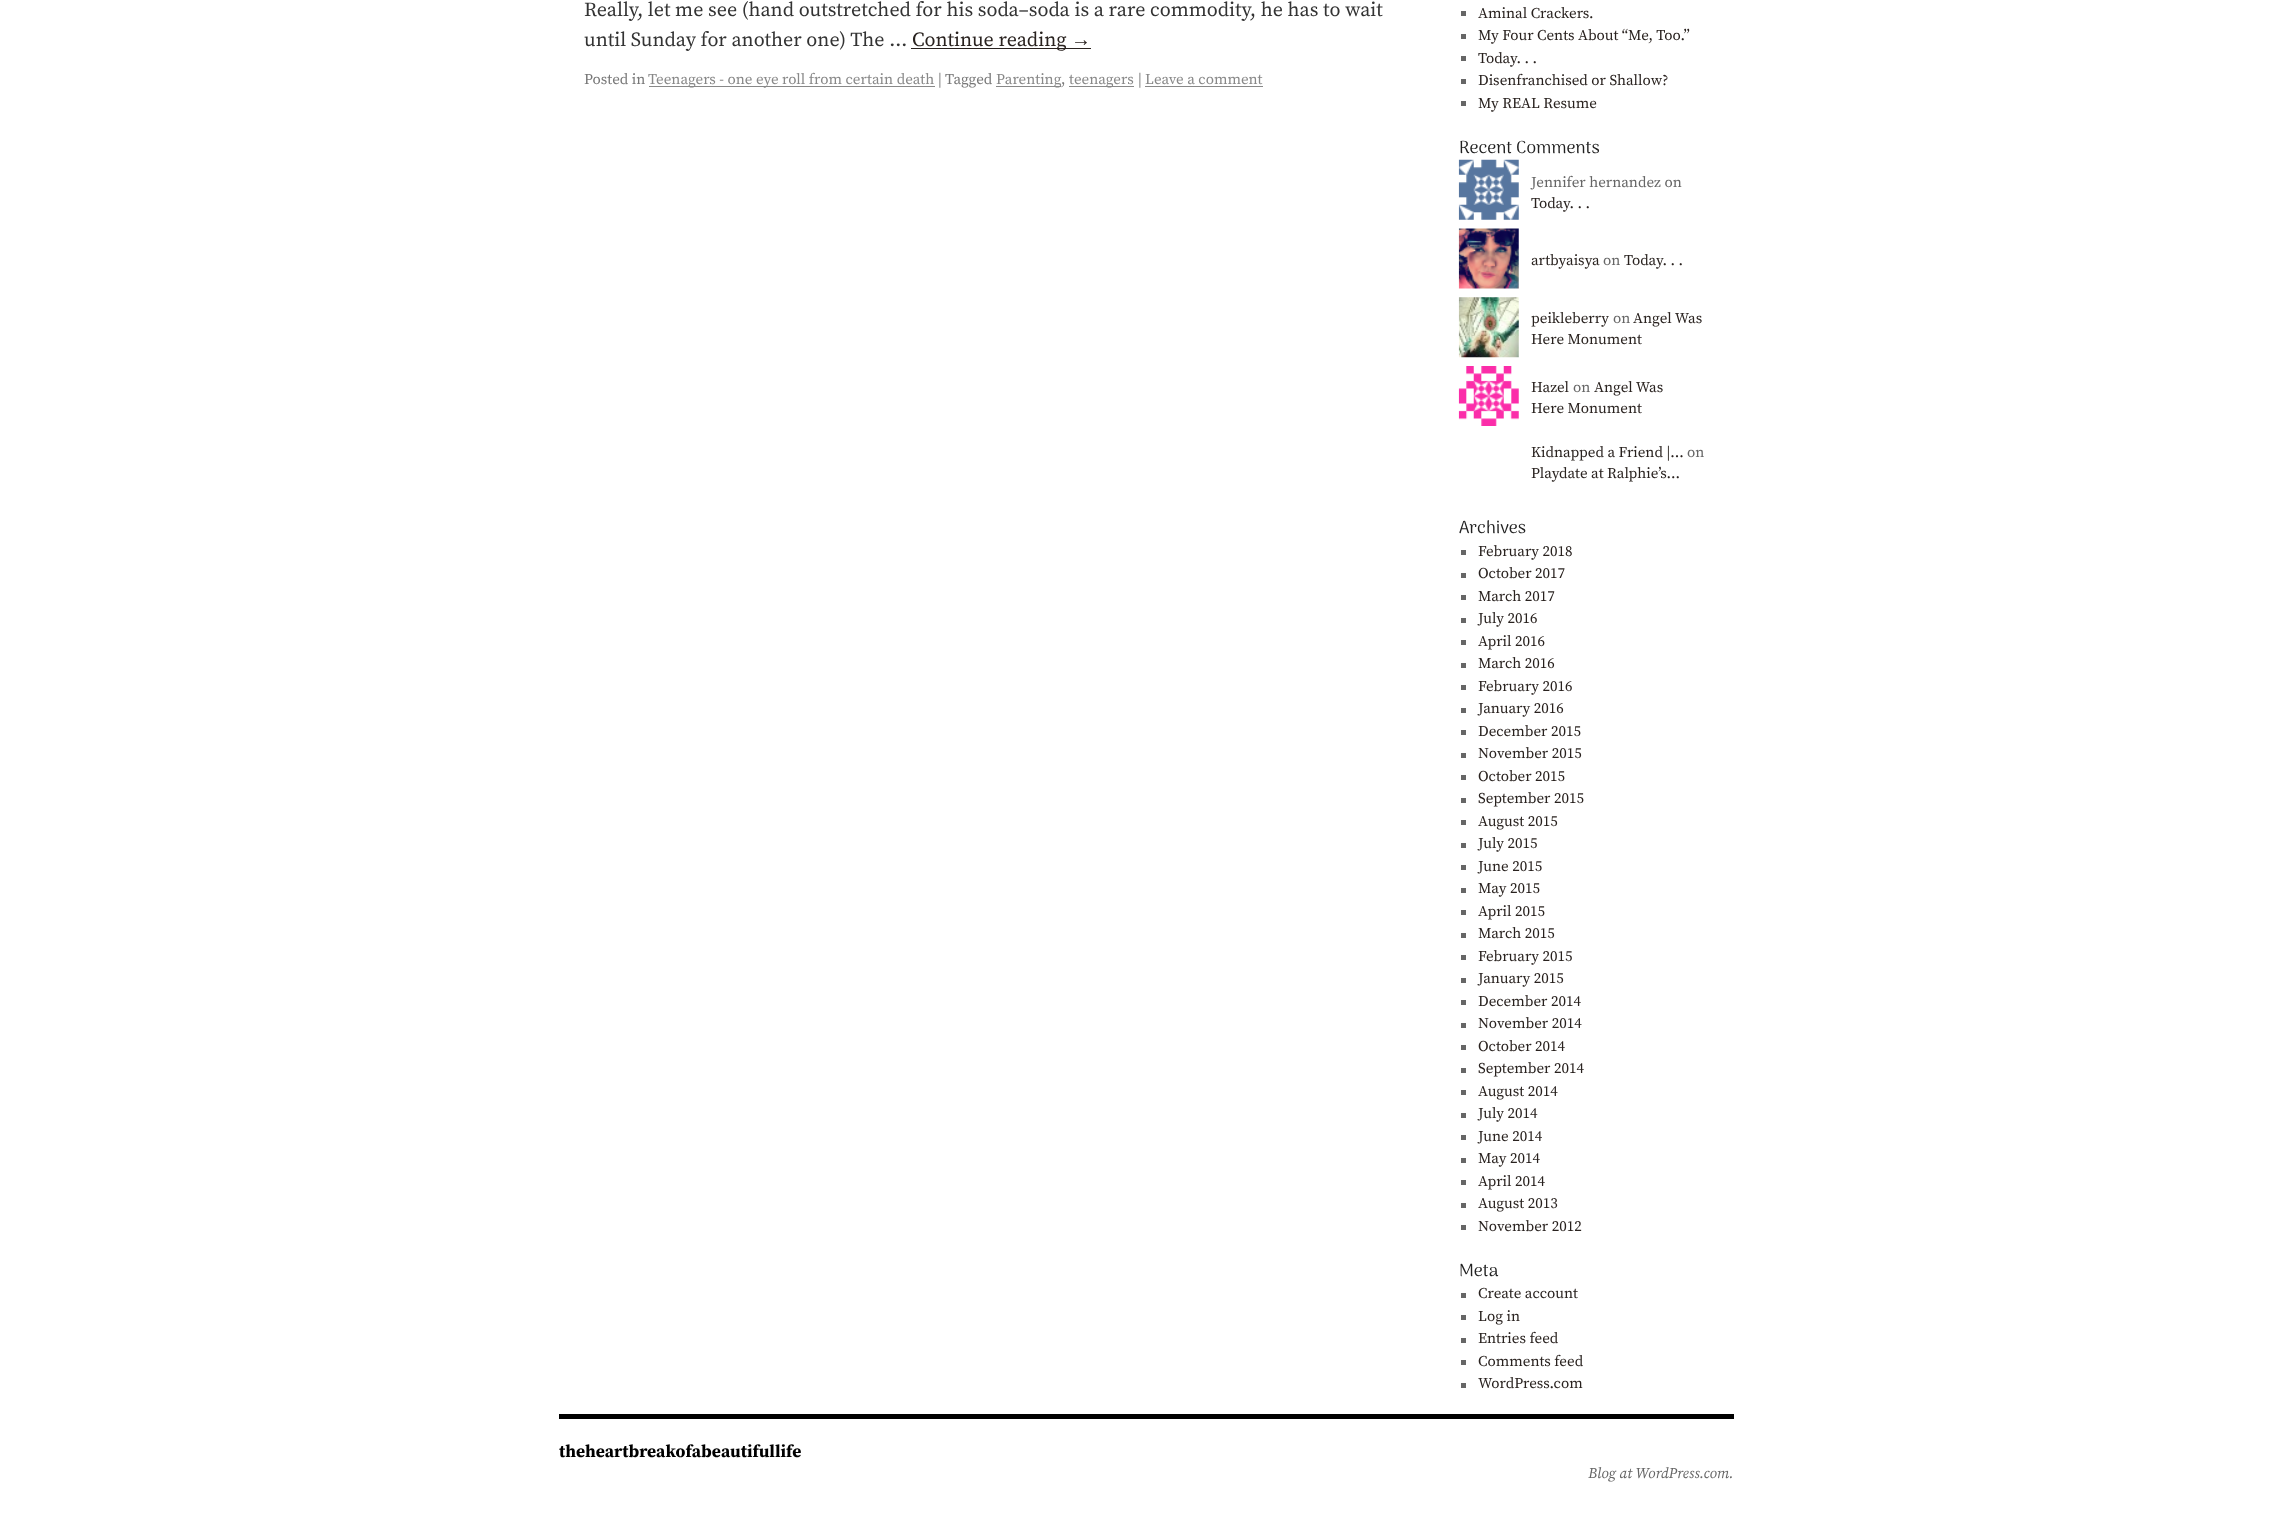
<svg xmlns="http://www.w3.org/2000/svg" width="2292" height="1533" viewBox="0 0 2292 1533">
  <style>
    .t1 { font: 20px Source Serif Pro; fill: #333; }
    .t2 { font: 20px Source Serif Pro; fill: #29221f; }
    .t3 { font: 20px Liberation Serif; fill: #29221f; }
    .t4 { font: 15px Source Serif Pro; fill: #777; }
    .t5 { font: 15px Source Serif Pro; fill: #888; }
    .t6 { font: 15px Source Serif Pro; fill: #29221f; }
    .t7 { font: 17.5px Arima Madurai; fill: #222; }
    .t8 { font: 15px Source Serif Pro; fill: #666; }
    .t9 { font: bold 17.5px Source Serif Pro; fill: #000; }
    .t10 { font: italic 15px Source Serif Pro; fill: #666; }
  </style>
  <rect width="100%" height="100%" fill="#fff"/>
  <text x="584" y="16" class="t1">Really, let me see (hand outstretched for his soda–soda is a rare commodity, he has to wait</text>
  <text x="584" y="46" class="t1">until Sunday for another one) The …</text>
  <rect x="911" y="48" width="180" height="1" fill="#29221f"/>
  <text x="912" y="46" class="t2">Continue reading</text>
  <text x="1071" y="46" class="t3">→</text>
  <text x="584" y="84" class="t4">Posted in</text>
  <rect x="649" y="86" width="286" height="1" fill="#888"/>
  <text x="648" y="84" class="t5">Teenagers - one eye roll from certain death</text>
  <text x="938" y="84" class="t4">| Tagged</text>
  <rect x="996" y="86" width="65" height="1" fill="#888"/>
  <text x="996" y="84" class="t5">Parenting</text>
  <text x="1061" y="84" class="t4">,</text>
  <rect x="1069" y="86" width="65" height="1" fill="#888"/>
  <text x="1069" y="84" class="t5">teenagers</text>
  <text x="1138" y="84" class="t4">|</text>
  <text x="1145" y="84" class="t5">Leave a comment</text>
  <rect x="1145" y="86" width="118" height="1" fill="#888"/>
  <rect x="1461" y="11" width="5" height="5" fill="#666"/>
  <text x="1478" y="18" class="t6">Aminal Crackers.</text>
  <rect x="1461" y="34" width="5" height="5" fill="#666"/>
  <text x="1478" y="40" class="t6">My Four Cents About “Me, Too.”</text>
  <rect x="1461" y="56" width="5" height="5" fill="#666"/>
  <text x="1478" y="63" class="t6">Today. . .</text>
  <rect x="1461" y="79" width="5" height="5" fill="#666"/>
  <text x="1478" y="85" class="t6">Disenfranchised or Shallow?</text>
  <rect x="1461" y="101" width="5" height="5" fill="#666"/>
  <text x="1478" y="108" class="t6">My REAL Resume</text>
  <text x="1459" y="153" class="t7">Recent Comments</text>
  <image x="1458" y="159" width="61" height="61" href="images/1.png"/>
  <text x="1531" y="187" class="t8">Jennifer hernandez on</text>
  <text x="1531" y="208" class="t6">Today. . .</text>
  <image x="1458" y="228" width="61" height="61" href="images/2.png"/>
  <text x="1531" y="265" class="t6">artbyaisya</text>
  <text x="1603" y="265" class="t8">on</text>
  <text x="1624" y="265" class="t6">Today. . .</text>
  <image x="1458" y="297" width="61" height="61" href="images/3.png"/>
  <text x="1531" y="323" class="t6">peikleberry</text>
  <text x="1613" y="323" class="t8">on</text>
  <text x="1633" y="323" class="t6">Angel Was</text>
  <text x="1531" y="344" class="t6">Here Monument</text>
  <image x="1458" y="366" width="61" height="60" href="images/4.png"/>
  <text x="1531" y="392" class="t6">Hazel</text>
  <text x="1573" y="392" class="t8">on</text>
  <text x="1594" y="392" class="t6">Angel Was</text>
  <text x="1531" y="413" class="t6">Here Monument</text>
  <text x="1531" y="457" class="t6">Kidnapped a Friend |…</text>
  <text x="1687" y="457" class="t8">on</text>
  <text x="1531" y="478" class="t6">Playdate at Ralphie’s…</text>
  <text x="1459" y="533" class="t7">Archives</text>
  <rect x="1461" y="550" width="5" height="5" fill="#666"/>
  <text x="1478" y="556" class="t6">February 2018</text>
  <rect x="1461" y="573" width="5" height="5" fill="#666"/>
  <text x="1478" y="578" class="t6">October 2017</text>
  <rect x="1461" y="595" width="5" height="5" fill="#666"/>
  <text x="1478" y="601" class="t6">March 2017</text>
  <rect x="1461" y="618" width="5" height="5" fill="#666"/>
  <text x="1478" y="623" class="t6">July 2016</text>
  <rect x="1461" y="640" width="5" height="5" fill="#666"/>
  <text x="1478" y="646" class="t6">April 2016</text>
  <rect x="1461" y="663" width="5" height="5" fill="#666"/>
  <text x="1478" y="668" class="t6">March 2016</text>
  <rect x="1461" y="685" width="5" height="5" fill="#666"/>
  <text x="1478" y="691" class="t6">February 2016</text>
  <rect x="1461" y="708" width="5" height="5" fill="#666"/>
  <text x="1478" y="713" class="t6">January 2016</text>
  <rect x="1461" y="730" width="5" height="5" fill="#666"/>
  <text x="1478" y="736" class="t6">December 2015</text>
  <rect x="1461" y="753" width="5" height="5" fill="#666"/>
  <text x="1478" y="758" class="t6">November 2015</text>
  <rect x="1461" y="775" width="5" height="5" fill="#666"/>
  <text x="1478" y="781" class="t6">October 2015</text>
  <rect x="1461" y="798" width="5" height="5" fill="#666"/>
  <text x="1478" y="803" class="t6">September 2015</text>
  <rect x="1461" y="820" width="5" height="5" fill="#666"/>
  <text x="1478" y="826" class="t6">August 2015</text>
  <rect x="1461" y="843" width="5" height="5" fill="#666"/>
  <text x="1478" y="848" class="t6">July 2015</text>
  <rect x="1461" y="865" width="5" height="5" fill="#666"/>
  <text x="1478" y="871" class="t6">June 2015</text>
  <rect x="1461" y="888" width="5" height="5" fill="#666"/>
  <text x="1478" y="893" class="t6">May 2015</text>
  <rect x="1461" y="910" width="5" height="5" fill="#666"/>
  <text x="1478" y="916" class="t6">April 2015</text>
  <rect x="1461" y="933" width="5" height="5" fill="#666"/>
  <text x="1478" y="938" class="t6">March 2015</text>
  <rect x="1461" y="955" width="5" height="5" fill="#666"/>
  <text x="1478" y="961" class="t6">February 2015</text>
  <rect x="1461" y="978" width="5" height="5" fill="#666"/>
  <text x="1478" y="983" class="t6">January 2015</text>
  <rect x="1461" y="1000" width="5" height="5" fill="#666"/>
  <text x="1478" y="1006" class="t6">December 2014</text>
  <rect x="1461" y="1023" width="5" height="5" fill="#666"/>
  <text x="1478" y="1028" class="t6">November 2014</text>
  <rect x="1461" y="1045" width="5" height="5" fill="#666"/>
  <text x="1478" y="1051" class="t6">October 2014</text>
  <rect x="1461" y="1068" width="5" height="5" fill="#666"/>
  <text x="1478" y="1073" class="t6">September 2014</text>
  <rect x="1461" y="1090" width="5" height="5" fill="#666"/>
  <text x="1478" y="1096" class="t6">August 2014</text>
  <rect x="1461" y="1113" width="5" height="5" fill="#666"/>
  <text x="1478" y="1118" class="t6">July 2014</text>
  <rect x="1461" y="1135" width="5" height="5" fill="#666"/>
  <text x="1478" y="1141" class="t6">June 2014</text>
  <rect x="1461" y="1158" width="5" height="5" fill="#666"/>
  <text x="1478" y="1163" class="t6">May 2014</text>
  <rect x="1461" y="1180" width="5" height="5" fill="#666"/>
  <text x="1478" y="1186" class="t6">April 2014</text>
  <rect x="1461" y="1203" width="5" height="5" fill="#666"/>
  <text x="1478" y="1208" class="t6">August 2013</text>
  <rect x="1461" y="1225" width="5" height="5" fill="#666"/>
  <text x="1478" y="1231" class="t6">November 2012</text>
  <text x="1459" y="1276" class="t7">Meta</text>
  <rect x="1461" y="1293" width="5" height="5" fill="#666"/>
  <text x="1478" y="1298" class="t6">Create account</text>
  <rect x="1461" y="1315" width="5" height="5" fill="#666"/>
  <text x="1478" y="1321" class="t6">Log in</text>
  <rect x="1461" y="1338" width="5" height="5" fill="#666"/>
  <text x="1478" y="1343" class="t6">Entries feed</text>
  <rect x="1461" y="1360" width="5" height="5" fill="#666"/>
  <text x="1478" y="1366" class="t6">Comments feed</text>
  <rect x="1461" y="1383" width="5" height="5" fill="#666"/>
  <text x="1478" y="1388" class="t6">WordPress.com</text>
  <rect x="559" y="1414" width="1175" height="5" fill="#000"/>
  <text x="559" y="1457" class="t9">theheartbreakofabeautifullife</text>
  <text x="1588" y="1478" class="t10">Blog at WordPress.com.</text>
</svg>
